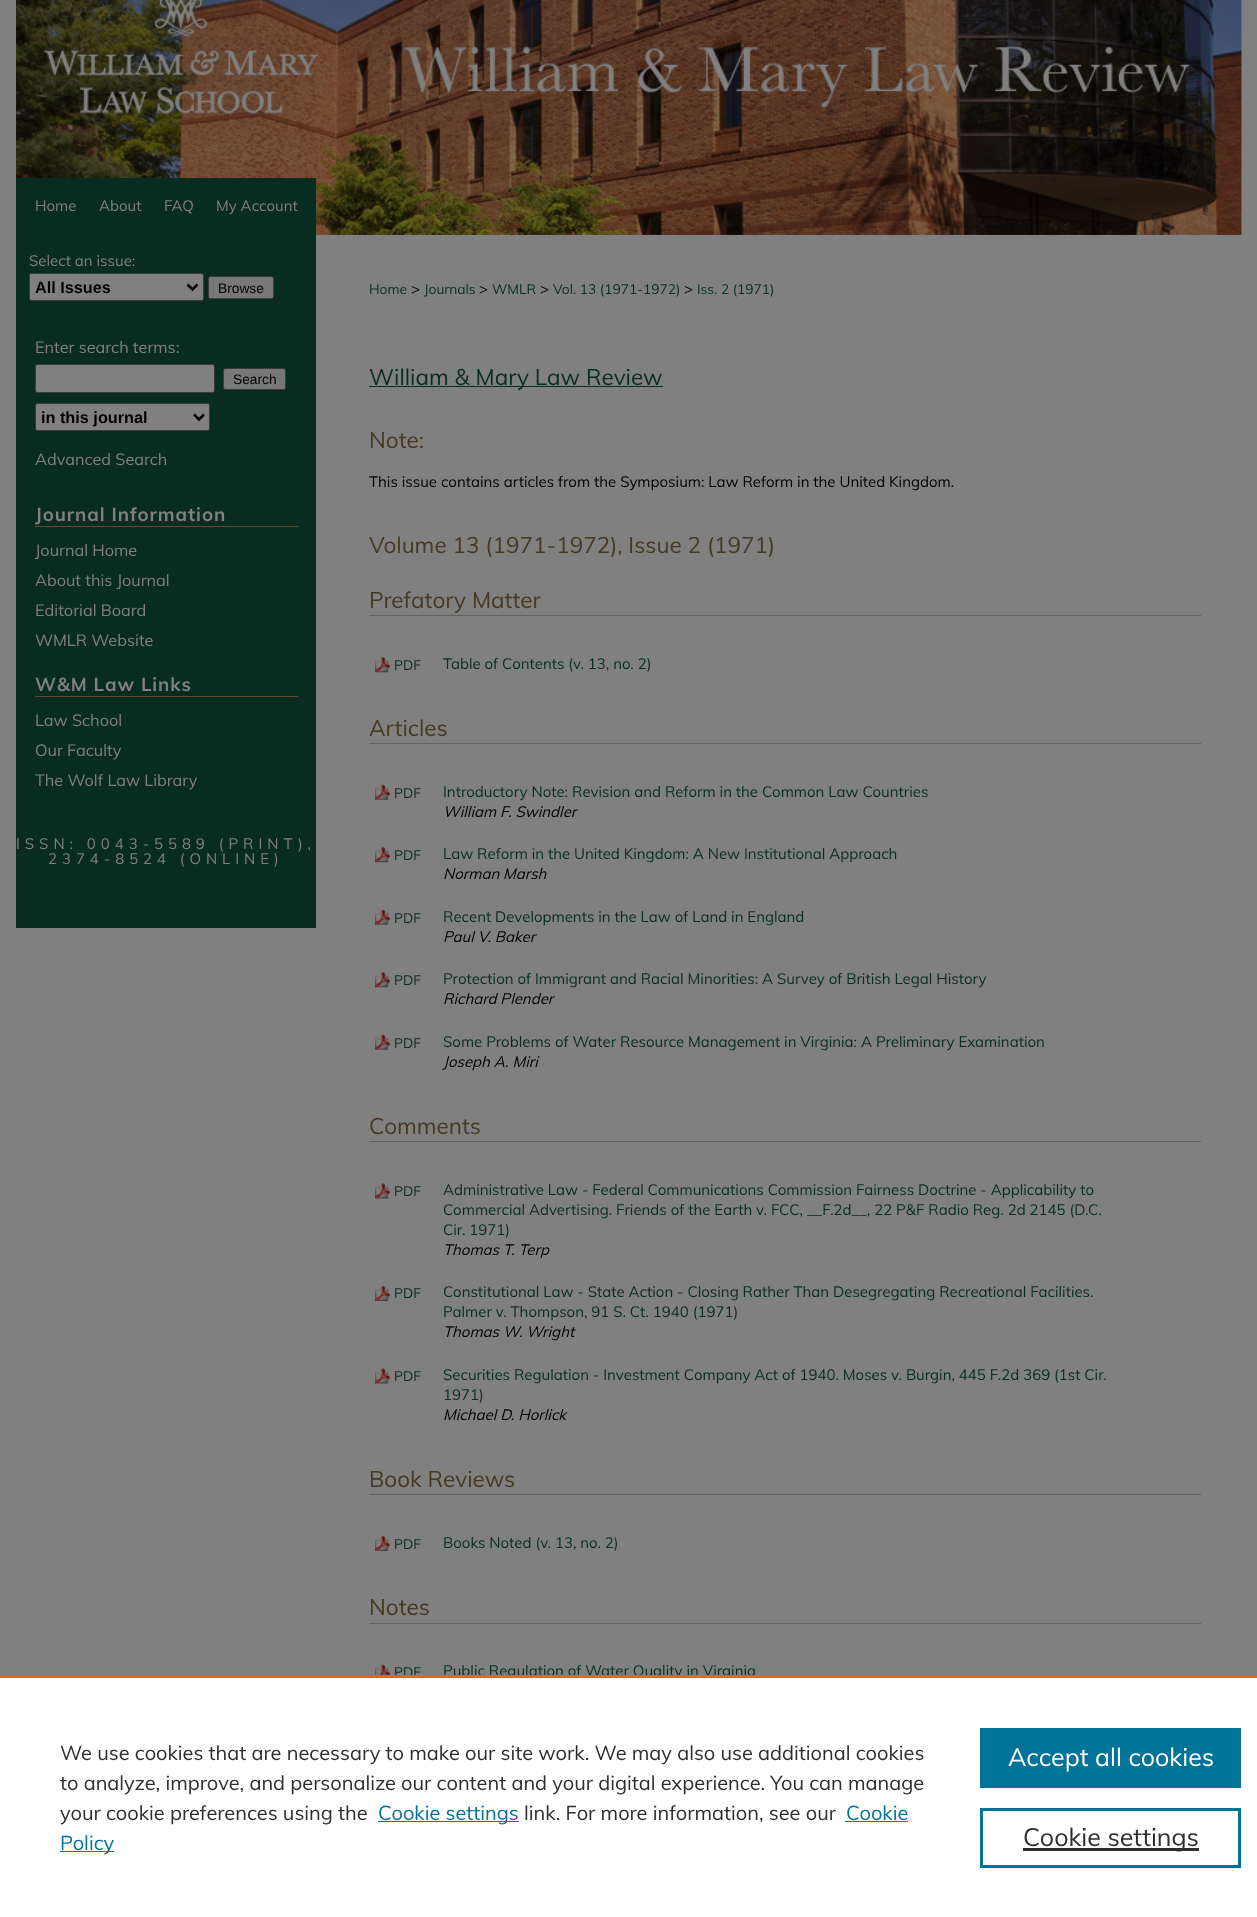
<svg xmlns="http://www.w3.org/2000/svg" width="1257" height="1917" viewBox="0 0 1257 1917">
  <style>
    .t1 { font: 15px Muli; fill: #808080; }
    .t2 { font: bold 16.25px Liberation Sans; fill: #000; }
    .t3 { font: 13.75px Liberation Sans; fill: #000; }
    .t4 { font: 16.25px Muli; fill: #808080; }
    .t5 { font: bold 18.75px Muli; letter-spacing: 0.9px; fill: #808080; }
    .t6 { font: 15px Muli; letter-spacing: 4.95px; fill: #808080; }
    .t7 { font: 13.75px Muli; fill: #092c20; }
    .t8 { font: 15px Muli; fill: #000; }
    .t9 { font: 22.5px Muli; fill: #092c20; }
    .t10 { font: 22.5px Muli; fill: #453922; }
    .t11 { font: 15px Muli; fill: #092c20; }
    .t12 { font: italic 15px Muli; fill: #000; }
    .t13 { font: 20px Muli; fill: #2e2e2e; }
    .t14 { font: 20px Muli; fill: #007398; }
    .t15 { font: 25px Muli; fill: #fff; }
    .t16 { font: 25px Muli; fill: #2e2e2e; }
  </style>
  <rect width="100%" height="100%" fill="#808080"/>
  <image x="16" y="0" width="1226" height="235" href="images/1.png"/>
  <image x="16" y="0" width="1226" height="235" href="images/2.png"/>
  <image x="16" y="0" width="322" height="178" href="images/3.png"/>
  <rect x="16" y="178" width="300" height="750" fill="#092c20"/>
  <text x="35" y="211" class="t1">Home</text>
  <text x="99" y="211" class="t1">About</text>
  <text x="164" y="211" class="t1">FAQ</text>
  <text x="216" y="211" class="t1">My Account</text>
  <text x="29" y="266" class="t1">Select an issue:</text>
  <rect x="29.5" y="273.5" width="174" height="27" rx="2" fill="#808080" stroke="#3b3b3b"/>
  <path d="M187.5 284.5L192.5 289.5L197.5 284.5" fill="none" stroke="#000" stroke-width="2.5"/>
  <text x="35" y="293" class="t2">All Issues</text>
  <rect x="208.5" y="276.5" width="65" height="22" rx="2" fill="#787878" stroke="#3b3b3b"/>
  <text x="218" y="293" class="t3">Browse</text>
  <text x="35" y="353" class="t4">Enter search terms:</text>
  <rect x="35.5" y="364.5" width="179" height="28" rx="2" fill="#808080" stroke="#3b3b3b"/>
  <rect x="223.5" y="368.5" width="62" height="21" rx="2" fill="#787878" stroke="#3b3b3b"/>
  <text x="233" y="384" class="t3">Search</text>
  <rect x="35.5" y="403.5" width="174" height="27" rx="2" fill="#808080" stroke="#3b3b3b"/>
  <path d="M194 414.5L199 419.5L204 414.5" fill="none" stroke="#000" stroke-width="2.5"/>
  <text x="41" y="423" class="t2">in this journal</text>
  <text x="35" y="465" class="t4">Advanced Search</text>
  <rect x="35" y="526" width="263" height="1" fill="#5d4c2e"/>
  <text x="35" y="521" class="t5">Journal Information</text>
  <text x="35" y="556" class="t4">Journal Home</text>
  <text x="35" y="586" class="t4">About this Journal</text>
  <text x="35" y="616" class="t4">Editorial Board</text>
  <text x="35" y="646" class="t4">WMLR Website</text>
  <rect x="35" y="696" width="263" height="1" fill="#5d4c2e"/>
  <text x="35" y="691" class="t5">W&amp;M Law Links</text>
  <text x="35" y="726" class="t4">Law School</text>
  <text x="35" y="756" class="t4">Our Faculty</text>
  <text x="35" y="786" class="t4">The Wolf Law Library</text>
  <text x="16" y="849" class="t6">ISSN: 0043-5589 (PRINT),</text>
  <text x="48" y="864" class="t6">2374-8524 (ONLINE)</text>
  <text x="369" y="294" class="t7">Home</text>
  <text x="411" y="294" class="t8">&gt;</text>
  <text x="424" y="294" class="t7">Journals</text>
  <text x="479" y="294" class="t8">&gt;</text>
  <text x="492" y="294" class="t7">WMLR</text>
  <text x="540" y="294" class="t8">&gt;</text>
  <text x="553" y="294" class="t7">Vol. 13 (1971-1972)</text>
  <text x="684" y="294" class="t8">&gt;</text>
  <text x="697" y="294" class="t7">Iss. 2 (1971)</text>
  <rect x="369" y="386" width="294" height="1" fill="#092c20"/>
  <text x="369" y="385" class="t9">William &amp; Mary Law Review</text>
  <text x="369" y="448" class="t10">Note:</text>
  <text x="369" y="487" class="t8">This issue contains articles from the Symposium: Law Reform in the United Kingdom.</text>
  <text x="369" y="553" class="t10">Volume 13 (1971-1972), Issue 2 (1971)</text>
  <rect x="369" y="615" width="832" height="1" fill="#606060"/>
  <text x="369" y="608" class="t10">Prefatory Matter</text>
  <image x="375" y="657" width="15" height="16" href="images/4.png"/>
  <text x="394" y="670" class="t7">PDF</text>
  <text x="443" y="669" class="t11">Table of Contents (v. 13, no. 2)</text>
  <rect x="369" y="743" width="832" height="1" fill="#606060"/>
  <text x="369" y="736" class="t10">Articles</text>
  <image x="375" y="784" width="15" height="16" href="images/5.png"/>
  <text x="394" y="798" class="t7">PDF</text>
  <text x="443" y="797" class="t11">Introductory Note: Revision and Reform in the Common Law Countries</text>
  <text x="443" y="817" class="t12">William F. Swindler</text>
  <image x="375" y="847" width="15" height="16" href="images/4.png"/>
  <text x="394" y="860" class="t7">PDF</text>
  <text x="443" y="859" class="t11">Law Reform in the United Kingdom: A New Institutional Approach</text>
  <text x="443" y="879" class="t12">Norman Marsh</text>
  <image x="375" y="909" width="15" height="16" href="images/5.png"/>
  <text x="394" y="923" class="t7">PDF</text>
  <text x="443" y="922" class="t11">Recent Developments in the Law of Land in England</text>
  <text x="443" y="942" class="t12">Paul V. Baker</text>
  <image x="375" y="972" width="15" height="16" href="images/4.png"/>
  <text x="394" y="985" class="t7">PDF</text>
  <text x="443" y="984" class="t11">Protection of Immigrant and Racial Minorities: A Survey of British Legal History</text>
  <text x="443" y="1004" class="t12">Richard Plender</text>
  <image x="375" y="1034" width="15" height="16" href="images/5.png"/>
  <text x="394" y="1048" class="t7">PDF</text>
  <text x="443" y="1047" class="t11">Some Problems of Water Resource Management in Virginia: A Preliminary Examination</text>
  <text x="443" y="1067" class="t12">Joseph A. Miri</text>
  <rect x="369" y="1141" width="832" height="1" fill="#606060"/>
  <text x="369" y="1134" class="t10">Comments</text>
  <image x="375" y="1183" width="15" height="16" href="images/6.png"/>
  <text x="394" y="1196" class="t7">PDF</text>
  <text x="443" y="1195" class="t11">Administrative Law - Federal Communications Commission Fairness Doctrine - Applicability to</text>
  <text x="443" y="1215" class="t11">Commercial Advertising. Friends of the Earth v. FCC, __F.2d__, 22 P&amp;F Radio Reg. 2d 2145 (D.C.</text>
  <text x="443" y="1235" class="t11">Cir. 1971)</text>
  <text x="443" y="1255" class="t12">Thomas T. Terp</text>
  <image x="375" y="1286" width="15" height="15" href="images/7.png"/>
  <text x="394" y="1298" class="t7">PDF</text>
  <text x="443" y="1297" class="t11">Constitutional Law - State Action - Closing Rather Than Desegregating Recreational Facilities.</text>
  <text x="443" y="1317" class="t11">Palmer v. Thompson, 91 S. Ct. 1940 (1971)</text>
  <text x="443" y="1337" class="t12">Thomas W. Wright</text>
  <image x="375" y="1368" width="15" height="16" href="images/6.png"/>
  <text x="394" y="1381" class="t7">PDF</text>
  <text x="443" y="1380" class="t11">Securities Regulation - Investment Company Act of 1940. Moses v. Burgin, 445 F.2d 369 (1st Cir.</text>
  <text x="443" y="1400" class="t11">1971)</text>
  <text x="443" y="1420" class="t12">Michael D. Horlick</text>
  <rect x="369" y="1494" width="832" height="1" fill="#606060"/>
  <text x="369" y="1487" class="t10">Book Reviews</text>
  <image x="375" y="1536" width="15" height="15" href="images/7.png"/>
  <text x="394" y="1549" class="t7">PDF</text>
  <text x="443" y="1548" class="t11">Books Noted (v. 13, no. 2)</text>
  <rect x="369" y="1623" width="832" height="1" fill="#606060"/>
  <text x="369" y="1615" class="t10">Notes</text>
  <image x="375" y="1664" width="15" height="11" href="images/8.png"/>
  <text x="394" y="1677" class="t7">PDF</text>
  <text x="443" y="1676" class="t11">Public Regulation of Water Quality in Virginia</text>
  <rect x="0" y="1678" width="1257" height="239" fill="#fff"/>
  <rect x="0" y="1675" width="1257" height="3" fill="#eb6500"/>
  <text x="60" y="1760" class="t13">We use cookies that are necessary to make our site work. We may also use additional cookies</text>
  <text x="60" y="1790" class="t13">to analyze, improve, and personalize our content and your digital experience. You can manage</text>
  <text x="60" y="1820" class="t13">your cookie preferences using the</text>
  <rect x="378" y="1821" width="141" height="1" fill="#007398"/>
  <text x="378" y="1820" class="t14">Cookie settings</text>
  <text x="524" y="1820" class="t13">link. For more information, see our</text>
  <text x="846" y="1820" class="t14">Cookie</text>
  <rect x="845" y="1821" width="63" height="1" fill="#007398"/>
  <rect x="60" y="1851" width="54" height="1" fill="#007398"/>
  <text x="60" y="1850" class="t14">Policy</text>
  <rect x="980" y="1728" width="261" height="60" fill="#007398"/>
  <text x="1008" y="1766" class="t15">Accept all cookies</text>
  <rect x="981.5" y="1809.5" width="258" height="57" fill="none" stroke="#007398" stroke-width="3"/>
  <rect x="1023" y="1848" width="176" height="3" fill="#2e2e2e"/>
  <text x="1023" y="1846" class="t16">Cookie settings</text>
</svg>
